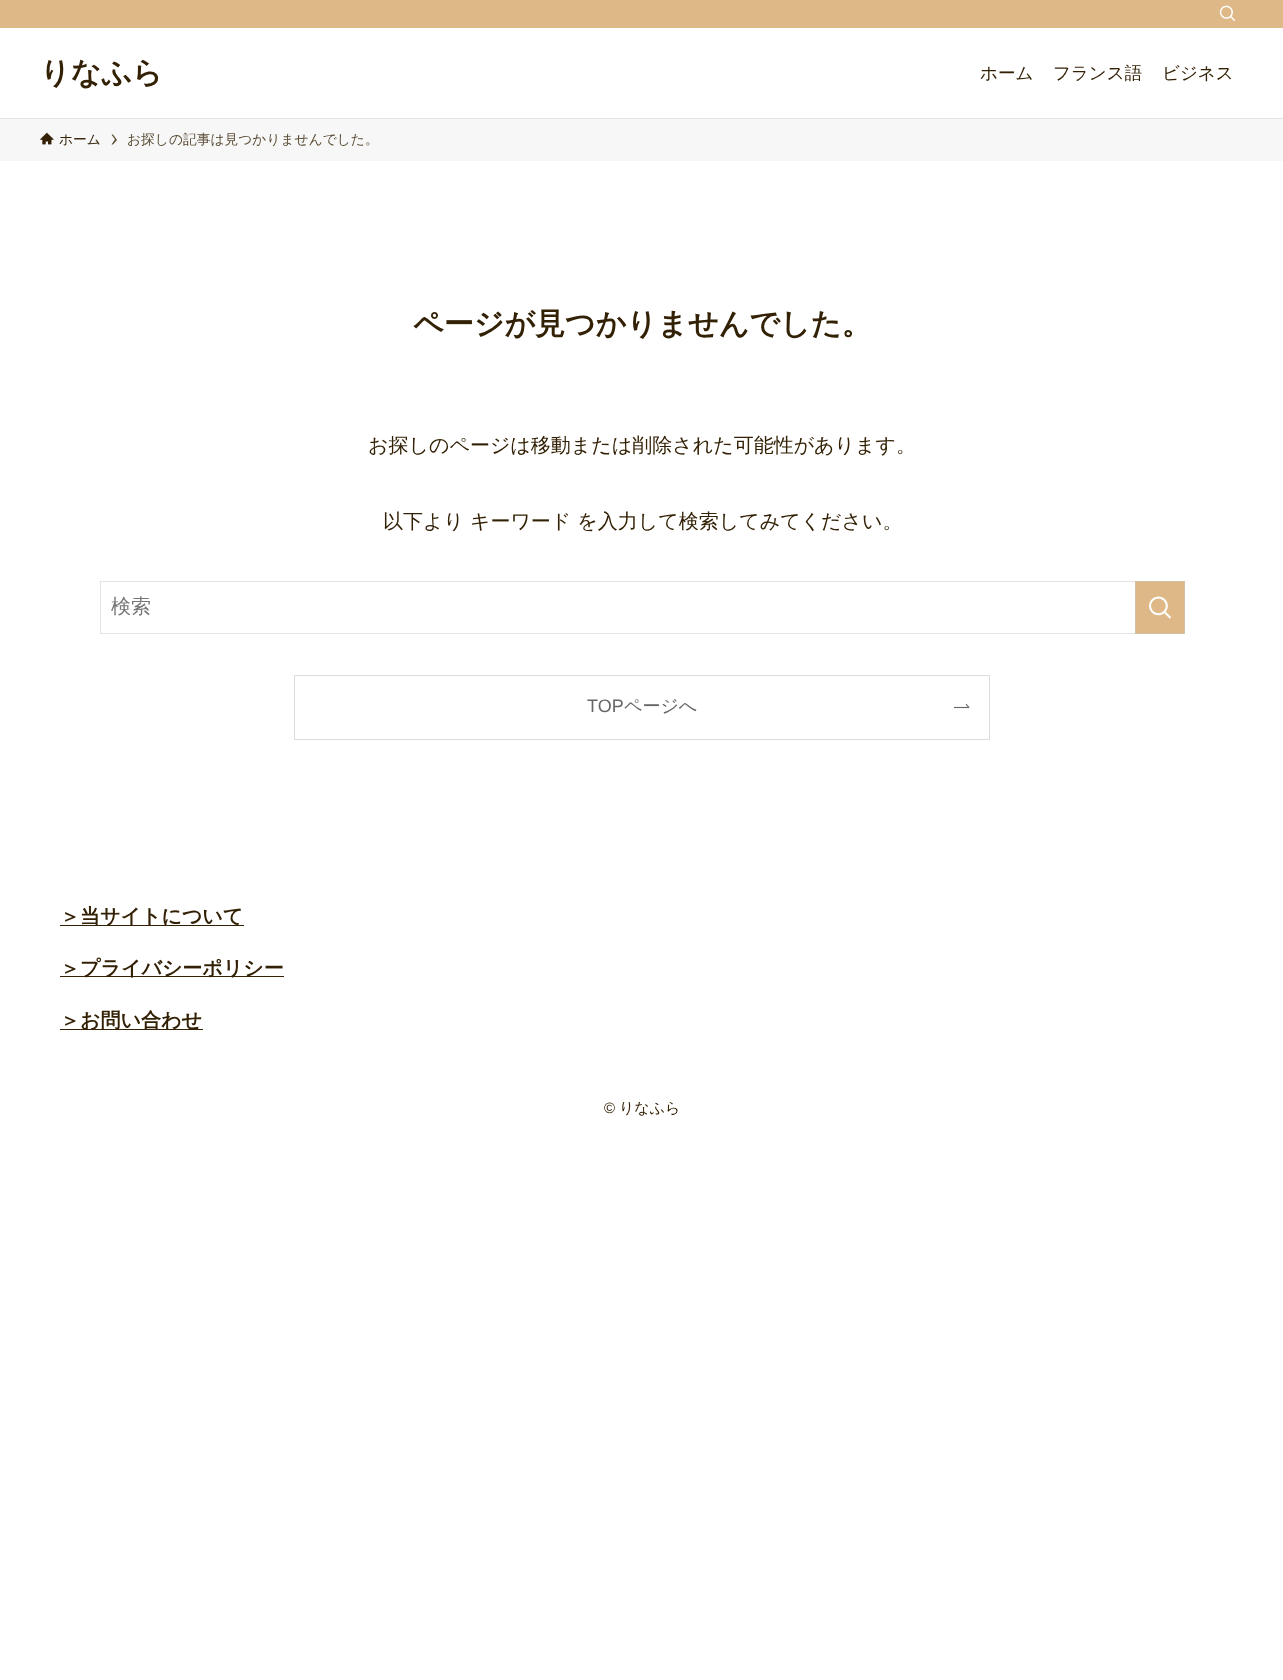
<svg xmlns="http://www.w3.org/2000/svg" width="1283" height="1680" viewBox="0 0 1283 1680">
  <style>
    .t1 { font: bold 30px WenQuanYi Zen Hei; fill: #332105; }
    .t2 { font: 500 17.5px WenQuanYi Zen Hei; fill: #332105; }
    .t3 { font: 500 13.75px WenQuanYi Zen Hei; fill: #332105; }
    .t4 { font: 500 13.75px WenQuanYi Zen Hei; fill: #5a4c35; }
    .t5 { font: 500 20px WenQuanYi Zen Hei; fill: #332105; }
    .t6 { font: 500 20px WenQuanYi Zen Hei; fill: #757575; }
    .t7 { font: 18px Liberation Sans; fill: #666; }
    .t8 { font: 500 18px WenQuanYi Zen Hei; fill: #666; }
    .t9 { font: bold 20px WenQuanYi Zen Hei; fill: #332105; }
    .t10 { font: 15px Liberation Sans; fill: #332105; }
    .t11 { font: 500 15px WenQuanYi Zen Hei; fill: #332105; }
  </style>
  <rect width="100%" height="100%" fill="#fff"/>
  <rect x="0" y="118" width="1283" height="1" fill="#e4e4e4"/>
  <rect x="0" y="0" width="1283" height="28" fill="#deb887"/>
  <image x="1219" y="5" width="17" height="16" href="images/1.png"/>
  <text x="40" y="83" class="t1">りなふら</text>
  <text x="980" y="79" class="t2">ホーム</text>
  <text x="1053" y="79" class="t2">フランス語</text>
  <text x="1162" y="79" class="t2">ビジネス</text>
  <rect x="0" y="119" width="1283" height="42" fill="#f7f7f7"/>
  <image x="40" y="132" width="14" height="13" href="images/2.png"/>
  <text x="59" y="144" class="t3">ホーム</text>
  <path d="M113 134.5H111.5L115 139.5L111.5 144.5H113L117 140Z" fill="#5a4c35"/>
  <text x="127" y="144" class="t4">お探しの記事は見つかりませんでした。</text>
  <text x="413" y="334" class="t1">ページが見つかりませんでした。</text>
  <text x="368" y="452" class="t5">お探しのページは移動または削除された可能性があります。</text>
  <text x="383" y="528" class="t5">以下より キーワード を入力して検索してみてください。</text>
  <rect x="100.5" y="581.5" width="1084" height="52" fill="none" stroke="#e3e3e3"/>
  <text x="111" y="613" class="t6">検索</text>
  <rect x="1135.5" y="581.5" width="49" height="52" fill="#deb887" stroke="#d3c0a7"/>
  <image x="1149" y="596" width="22" height="23" href="images/3.png"/>
  <rect x="294.5" y="675.5" width="695" height="64" fill="none" stroke="#dcdcdc"/>
  <text x="587" y="712" class="t7">TOP</text>
  <text x="624" y="712" class="t8">ページへ</text>
  <image x="954" y="703" width="16" height="6" href="images/4.png"/>
  <rect x="60" y="925" width="184" height="1" fill="#332105"/>
  <text x="60" y="923" class="t9">＞当サイトについて</text>
  <rect x="60" y="976" width="224" height="1" fill="#332105"/>
  <text x="60" y="975" class="t9">＞プライバシーポリシー</text>
  <rect x="60" y="1029" width="143" height="1" fill="#332105"/>
  <text x="60" y="1027" class="t9">＞お問い合わせ</text>
  <text x="604" y="1113" class="t10">©</text>
  <text x="619" y="1113" class="t11">りなふら</text>
</svg>
